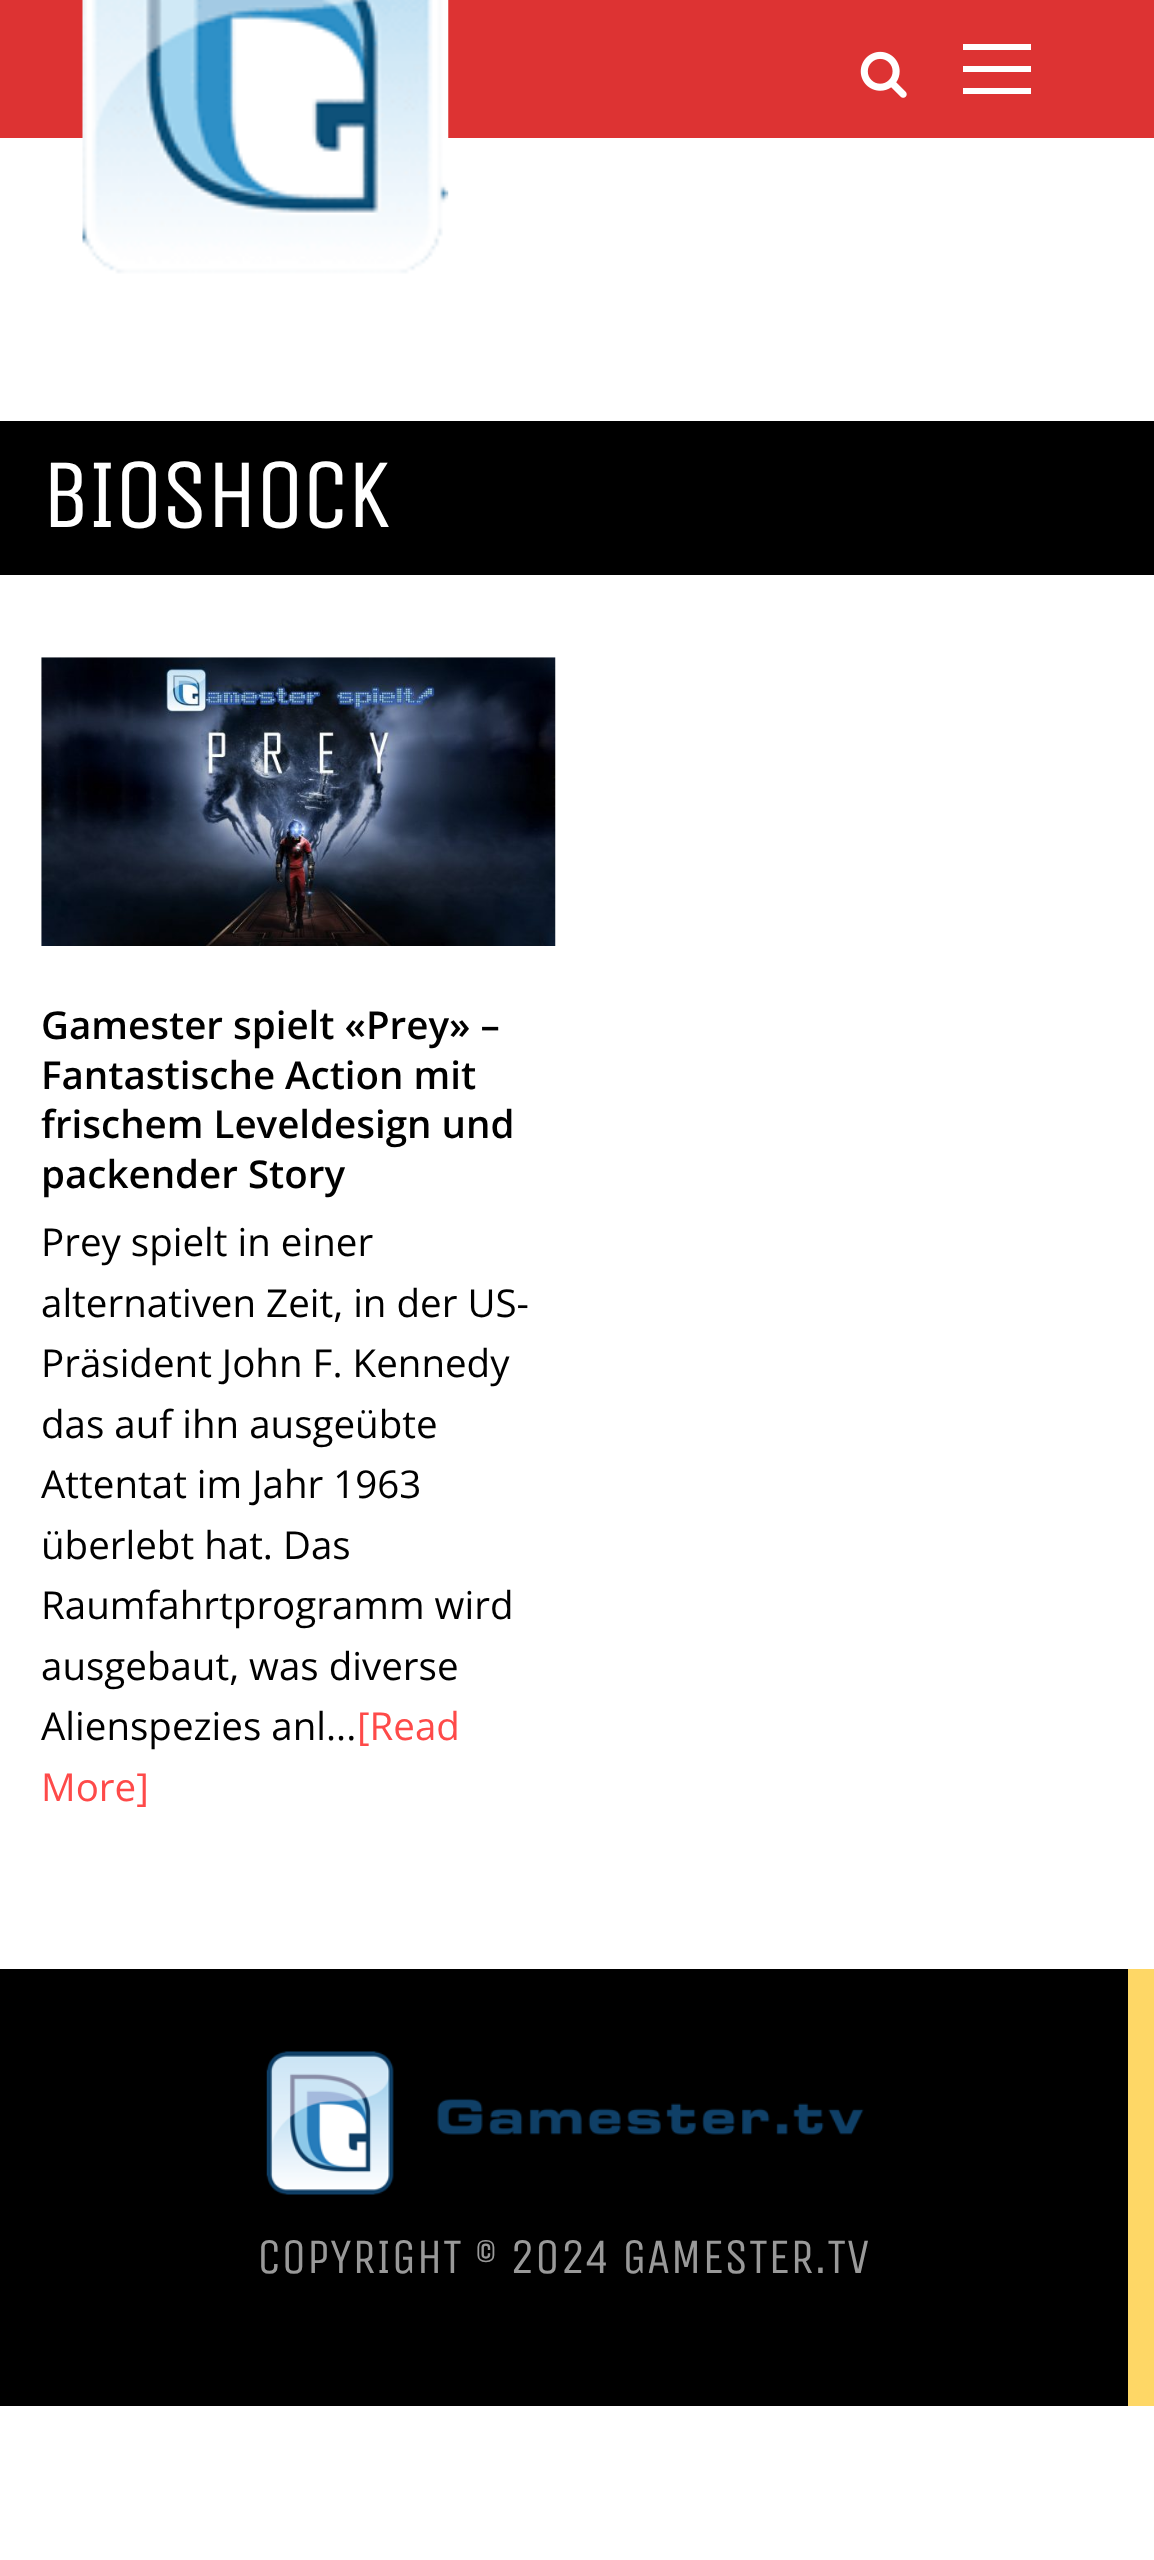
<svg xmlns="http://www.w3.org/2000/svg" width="1154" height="2560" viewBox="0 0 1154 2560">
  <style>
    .t1 { font: 99px Unica One; letter-spacing: -4px; fill: #fff; }
    .t2 { font: 600 38.5px Open Sans; fill: #000; }
    .t3 { font: 38.5px Open Sans; fill: #000; }
    .t4 { font: 38.5px Open Sans; fill: #fe4a49; }
    .t5 { font: 49.5px Unica One; fill: #999; }
  </style>
  <rect width="100%" height="100%" fill="#fff"/>
  <rect x="0" y="0" width="1154" height="138" fill="#d33"/>
  <image x="82" y="0" width="367" height="274" href="images/1.png"/>
  <image x="860" y="51" width="47" height="47" href="images/2.png"/>
  <rect x="963" y="66" width="68" height="6" fill="#fff"/>
  <rect x="963" y="44" width="68" height="6" fill="#fff"/>
  <rect x="963" y="88" width="68" height="6" fill="#fff"/>
  <rect x="0" y="421" width="1154" height="154" fill="#000"/>
  <text x="41" y="527" class="t1">BIOSHOCK</text>
  <image x="41" y="657" width="515" height="289" href="images/3.png"/>
  <text x="41" y="1039" class="t2">Gamester spielt «Prey» –</text>
  <text x="41" y="1089" class="t2">Fantastische Action mit</text>
  <text x="41" y="1138" class="t2">frischem Leveldesign und</text>
  <text x="41" y="1188" class="t2">packender Story</text>
  <text x="41" y="1256" class="t3">Prey spielt in einer</text>
  <text x="41" y="1317" class="t3">alternativen Zeit, in der US-</text>
  <text x="41" y="1377" class="t3">Präsident John F. Kennedy</text>
  <text x="41" y="1438" class="t3">das auf ihn ausgeübte</text>
  <text x="41" y="1498" class="t3">Attentat im Jahr 1963</text>
  <text x="41" y="1559" class="t3">überlebt hat. Das</text>
  <text x="41" y="1619" class="t3">Raumfahrtprogramm wird</text>
  <text x="41" y="1680" class="t3">ausgebaut, was diverse</text>
  <text x="41" y="1740" class="t3">Alienspezies anl...</text>
  <text x="357" y="1740" class="t4">[Read</text>
  <text x="41" y="1801" class="t4">More]</text>
  <rect x="0" y="1969" width="1128" height="437" fill="#000"/>
  <rect x="1128" y="1969" width="26" height="437" fill="#fed766"/>
  <image x="266" y="2051" width="598" height="144" href="images/4.png"/>
  <text x="257" y="2273" class="t5">COPYRIGHT © 2024 GAMESTER.TV</text>
</svg>
